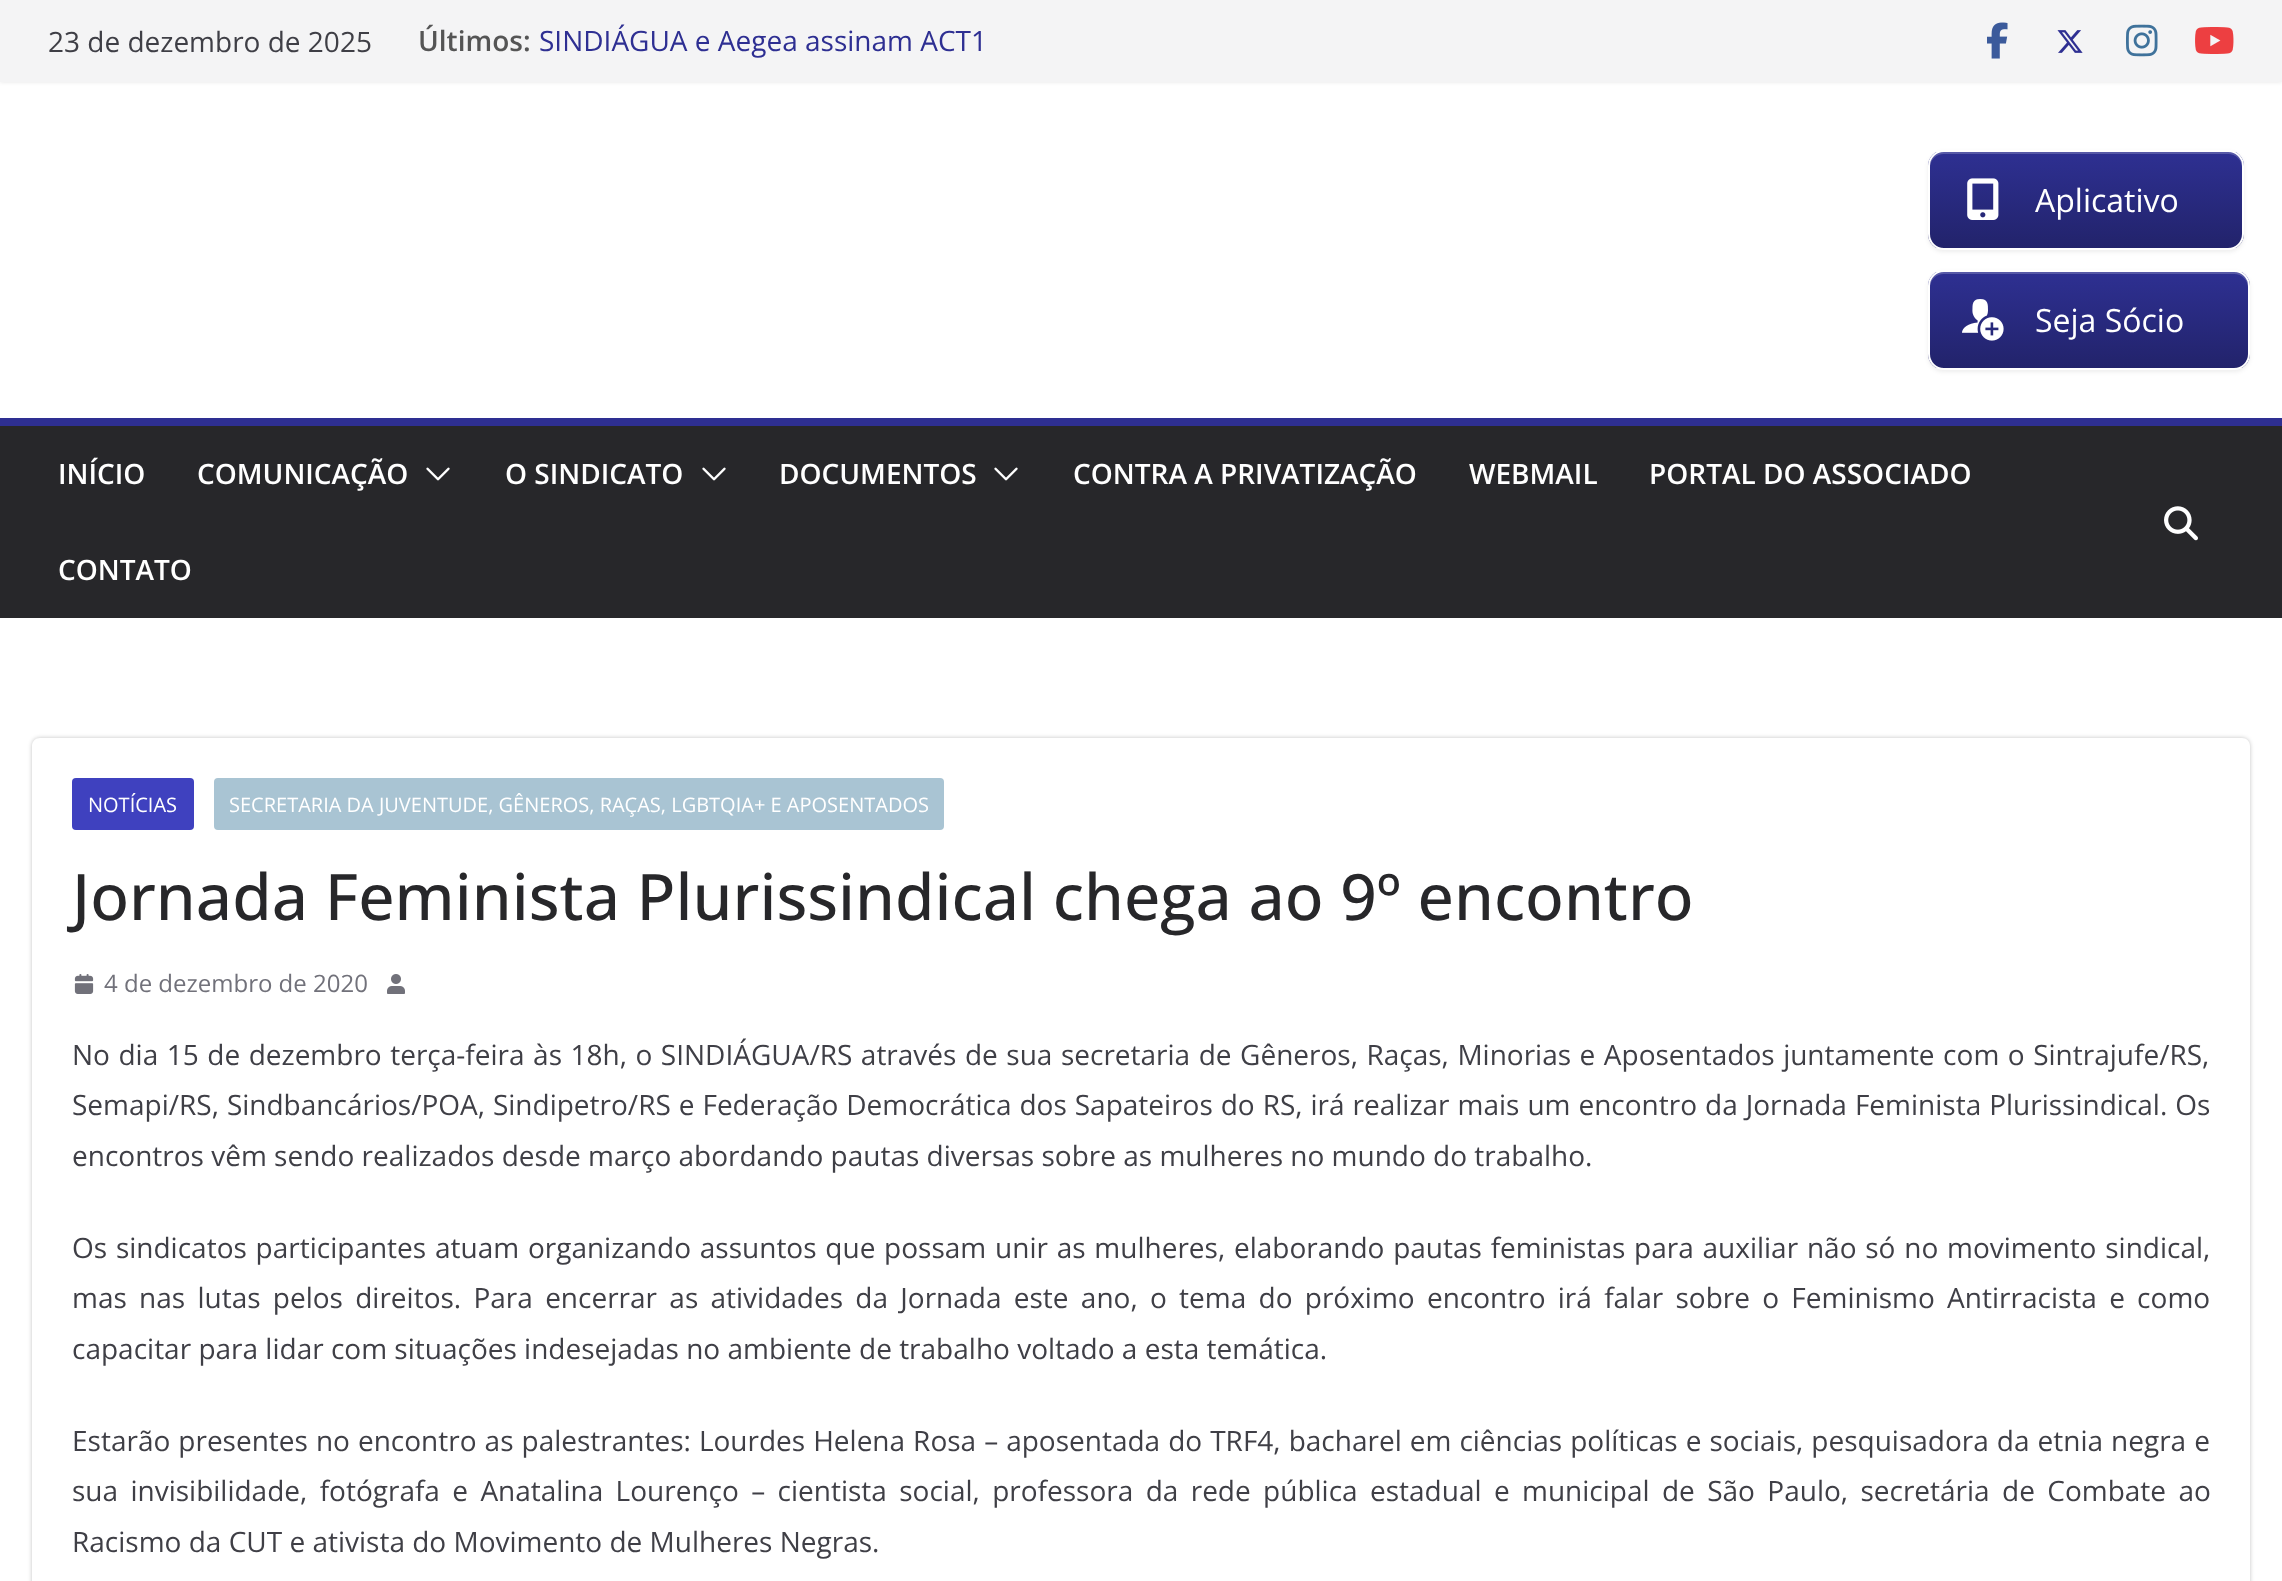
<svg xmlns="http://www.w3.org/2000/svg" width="2282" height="1581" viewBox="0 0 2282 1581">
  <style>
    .t1 { font: 28px Open Sans; fill: #3f3f46; }
    .t2 { font: 600 28px Open Sans; fill: #555; }
    .t3 { font: 28px Open Sans; fill: #2e2f92; }
    .t4 { font: 32px Open Sans; fill: #fff; }
    .t5 { font: 600 28px Open Sans; fill: #fff; }
    .t6 { font: 20px Open Sans; fill: #fff; }
    .t7 { font: 500 64px Open Sans; fill: #27272a; }
    .t8 { font: 24px Open Sans; fill: #71717a; }
  </style>
  <defs>
    <clipPath id="clip1"><rect x="1928" y="150" width="316" height="100" rx="16"/></clipPath>
    <linearGradient id="g1" gradientUnits="userSpaceOnUse" x1="1930" y1="248" x2="1930" y2="152"><stop offset="0" stop-color="#22236b"/><stop offset="1" stop-color="#2e3092"/></linearGradient>
    <clipPath id="clip2"><rect x="1928" y="270" width="322" height="100" rx="16"/></clipPath>
    <linearGradient id="g2" gradientUnits="userSpaceOnUse" x1="1930" y1="368" x2="1930" y2="272"><stop offset="0" stop-color="#22236b"/><stop offset="1" stop-color="#2e3092"/></linearGradient>
    <clipPath id="clip3"><path d="M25 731H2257V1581H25ZM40 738H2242C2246.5 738 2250 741.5 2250 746V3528C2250 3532.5 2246.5 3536 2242 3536H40C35.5 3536 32 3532.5 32 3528V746C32 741.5 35.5 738 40 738Z" clip-rule="evenodd"/></clipPath>
  </defs>
  <rect width="100%" height="100%" fill="#fff"/>
  <rect x="0" y="0" width="2282" height="82" fill="#0000001a" filter="blur(2px)"/>
  <rect x="0" y="0" width="2282" height="82" fill="#f4f4f5"/>
  <text x="48" y="52" class="t1">23 de dezembro de 2025</text>
  <text x="418" y="51" class="t2">Últimos:</text>
  <text x="539" y="51" class="t3">SINDIÁGUA e Aegea assinam ACT1</text>
  <image x="1987" y="22" width="21" height="37" href="images/1.png"/>
  <image x="2057" y="30" width="26" height="23" href="images/2.png"/>
  <image x="2126" y="24" width="32" height="33" href="images/3.png"/>
  <image x="2195" y="27" width="39" height="27" href="images/4.png"/>
  <rect x="1928" y="152" width="316" height="100" rx="16" fill="#00000012" filter="blur(2px)"/>
  <g clip-path="url(#clip1)">
    <rect x="1928" y="152" width="316" height="96" fill="url(#g1)"/>
  </g>
  <path d="M1944 154H2228C2236 154 2242 160 2242 168V166C2242 158 2236 152 2228 152H1944C1936 152 1930 158 1930 166V168C1930 160 1936 154 1944 154Z" fill="#ffffff33"/>
  <rect x="1929" y="151" width="314" height="98" rx="15" fill="none" stroke="#fff" stroke-width="2"/>
  <image x="1967" y="178" width="32" height="42" href="images/5.png"/>
  <text x="2035" y="212" class="t4">Aplicativo</text>
  <rect x="1928" y="272" width="322" height="100" rx="16" fill="#00000012" filter="blur(2px)"/>
  <g clip-path="url(#clip2)">
    <rect x="1928" y="272" width="322" height="96" fill="url(#g2)"/>
  </g>
  <path d="M1944 274H2234C2242 274 2248 280 2248 288V286C2248 278 2242 272 2234 272H1944C1936 272 1930 278 1930 286V288C1930 280 1936 274 1944 274Z" fill="#ffffff33"/>
  <rect x="1929" y="271" width="320" height="98" rx="15" fill="none" stroke="#fff" stroke-width="2"/>
  <image x="1962" y="299" width="42" height="42" href="images/6.png"/>
  <text x="2035" y="332" class="t4">Seja Sócio</text>
  <rect x="0" y="426" width="2282" height="192" fill="#27272a"/>
  <rect x="0" y="418" width="2282" height="8" fill="#2e2f92"/>
  <text x="58" y="484" class="t5">INÍCIO</text>
  <text x="197" y="484" class="t5">COMUNICAÇÃO</text>
  <image x="426" y="467" width="24" height="14" href="images/7.png"/>
  <text x="505" y="484" class="t5">O SINDICATO</text>
  <image x="702" y="467" width="24" height="14" href="images/7.png"/>
  <text x="779" y="484" class="t5">DOCUMENTOS</text>
  <image x="994" y="467" width="24" height="14" href="images/7.png"/>
  <text x="1073" y="484" class="t5">CONTRA A PRIVATIZAÇÃO</text>
  <text x="1469" y="484" class="t5">WEBMAIL</text>
  <text x="1649" y="484" class="t5">PORTAL DO ASSOCIADO</text>
  <text x="58" y="580" class="t5">CONTATO</text>
  <image x="2164" y="506" width="34" height="35" href="images/8.png"/>
  <g clip-path="url(#clip3)">
    <rect x="32" y="738" width="2218" height="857" rx="8" fill="#0000003d" filter="blur(2px)"/>
  </g>
  <rect x="72" y="778" width="122" height="52" rx="4" fill="#3f41bf"/>
  <text x="88" y="812" class="t6">NOTÍCIAS</text>
  <rect x="214" y="778" width="730" height="52" rx="4" fill="#a9c4d3"/>
  <text x="229" y="812" class="t6">SECRETARIA DA JUVENTUDE, GÊNEROS, RAÇAS, LGBTQIA+ E APOSENTADOS</text>
  <text x="72" y="920" class="t7">Jornada Feminista Plurissindical chega ao 9º encontro</text>
  <image x="74" y="974" width="20" height="20" href="images/9.png"/>
  <text x="104" y="992" class="t8">4 de dezembro de 2020</text>
  <image x="387" y="974" width="18" height="20" href="images/10.png"/>
  <text x="72" y="1065" word-spacing="1.25" class="t1">No dia 15 de dezembro terça-feira às 18h, o SINDIÁGUA/RS através de sua secretaria de Gêneros, Raças, Minorias e Aposentados juntamente com o Sintrajufe/RS,</text>
  <text x="72" y="1115" word-spacing="0.7" class="t1">Semapi/RS, Sindbancários/POA, Sindipetro/RS e Federação Democrática dos Sapateiros do RS, irá realizar mais um encontro da Jornada Feminista Plurissindical. Os</text>
  <text x="72" y="1166" class="t1">encontros vêm sendo realizados desde março abordando pautas diversas sobre as mulheres no mundo do trabalho.</text>
  <text x="72" y="1258" word-spacing="1.5" class="t1">Os sindicatos participantes atuam organizando assuntos que possam unir as mulheres, elaborando pautas feministas para auxiliar não só no movimento sindical,</text>
  <text x="72" y="1308" word-spacing="5" class="t1">mas nas lutas pelos direitos. Para encerrar as atividades da Jornada este ano, o tema do próximo encontro irá falar sobre o Feminismo Antirracista e como</text>
  <text x="72" y="1359" class="t1">capacitar para lidar com situações indesejadas no ambiente de trabalho voltado a esta temática.</text>
  <text x="72" y="1451" word-spacing="0.75" class="t1">Estarão presentes no encontro as palestrantes: Lourdes Helena Rosa – aposentada do TRF4, bacharel em ciências políticas e sociais, pesquisadora da etnia negra e</text>
  <text x="72" y="1501" word-spacing="5.1" class="t1">sua invisibilidade, fotógrafa e Anatalina Lourenço – cientista social, professora da rede pública estadual e municipal de São Paulo, secretária de Combate ao</text>
  <text x="72" y="1552" class="t1">Racismo da CUT e ativista do Movimento de Mulheres Negras.</text>
</svg>
